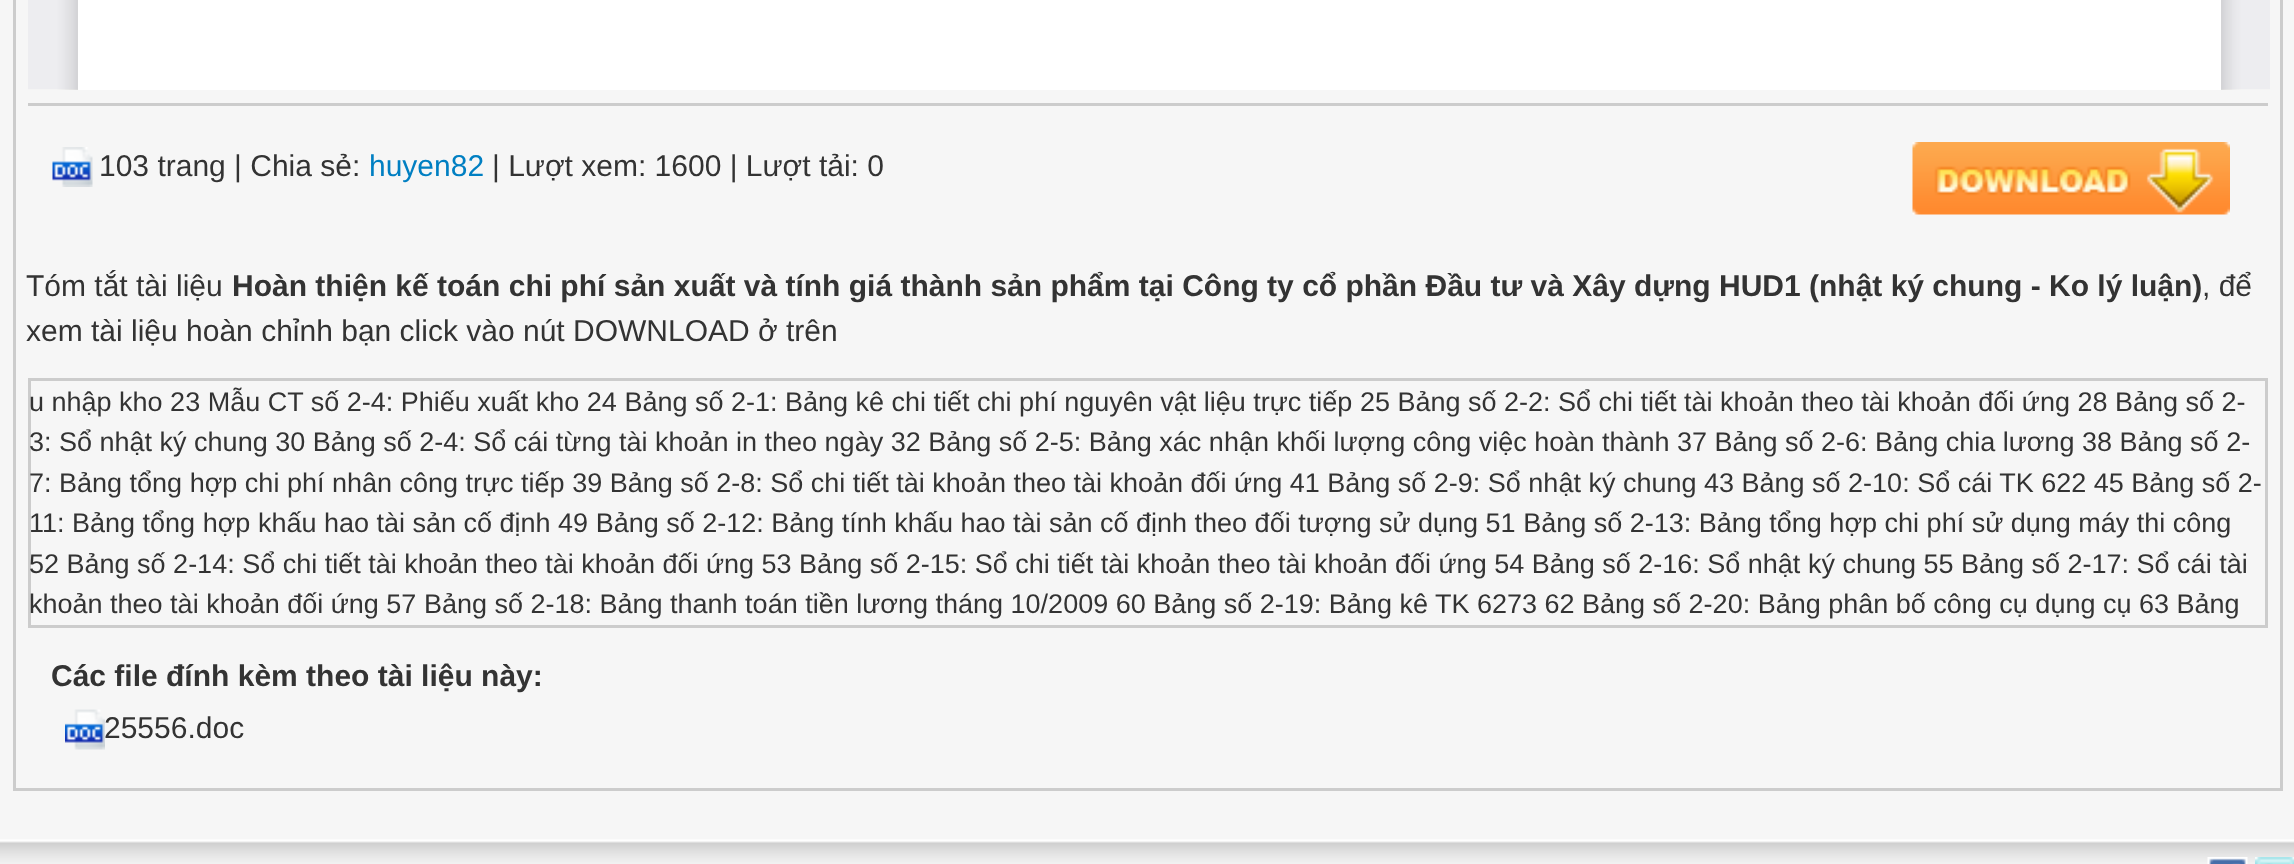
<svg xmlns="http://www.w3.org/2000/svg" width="2294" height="864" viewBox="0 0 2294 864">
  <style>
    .t1 { font: 30px Liberation Sans; fill: #333; }
    .t2 { font: 30px Liberation Sans; fill: #007fc2; }
    .t3 { font: bold 30px Liberation Sans; fill: #333; }
    .t4 { font: 27px Liberation Sans; fill: #333; }
  </style>
  <rect width="100%" height="100%" fill="#f6f6f6"/>
  <rect x="2280" y="0" width="3" height="790" fill="#ccc"/>
  <rect x="13" y="788" width="2270" height="3" fill="#ccc"/>
  <rect x="13" y="0" width="3" height="790" fill="#ccc"/>
  <rect x="28" y="103" width="2240" height="3" fill="#ccc"/>
  <image x="28" y="0" width="2242" height="90" href="images/1.png"/>
  <image x="52" y="147" width="41" height="40" href="images/2.png"/>
  <text x="99" y="176" class="t1">103 trang | Chia sẻ:</text>
  <text x="369" y="176" class="t2">huyen82</text>
  <text x="492" y="176" class="t1">| Lượt xem: 1600 | Lượt tải: 0</text>
  <image x="1912" y="142" width="318" height="73" href="images/3.png"/>
  <text x="26" y="296" class="t1">Tóm tắt tài liệu</text>
  <text x="232" y="296" class="t3">Hoàn thiện kế toán chi phí sản xuất và tính giá thành sản phẩm tại Công ty cổ phần Đầu tư và Xây dựng HUD1 (nhật ký chung - Ko lý luận)</text>
  <text x="2202" y="296" class="t1">, để</text>
  <text x="26" y="341" class="t1">xem tài liệu hoàn chỉnh bạn click vào nút DOWNLOAD ở trên</text>
  <rect x="29.5" y="379.5" width="2237" height="247" fill="none" stroke="#ccc" stroke-width="3"/>
  <text x="29" y="411" class="t4">u nhập kho 23 Mẫu CT số 2-4: Phiếu xuất kho 24 Bảng số 2-1: Bảng kê chi tiết chi phí nguyên vật liệu trực tiếp 25 Bảng số 2-2: Sổ chi tiết tài khoản theo tài khoản đối ứng 28 Bảng số 2-</text>
  <text x="29" y="451" class="t4">3: Sổ nhật ký chung 30 Bảng số 2-4: Sổ cái từng tài khoản in theo ngày 32 Bảng số 2-5: Bảng xác nhận khối lượng công việc hoàn thành 37 Bảng số 2-6: Bảng chia lương 38 Bảng số 2-</text>
  <text x="29" y="492" class="t4">7: Bảng tổng hợp chi phí nhân công trực tiếp 39 Bảng số 2-8: Sổ chi tiết tài khoản theo tài khoản đối ứng 41 Bảng số 2-9: Sổ nhật ký chung 43 Bảng số 2-10: Sổ cái TK 622 45 Bảng số 2-</text>
  <text x="29" y="532" class="t4">11: Bảng tổng hợp khấu hao tài sản cố định 49 Bảng số 2-12: Bảng tính khấu hao tài sản cố định theo đối tượng sử dụng 51 Bảng số 2-13: Bảng tổng hợp chi phí sử dụng máy thi công</text>
  <text x="29" y="573" class="t4">52 Bảng số 2-14: Sổ chi tiết tài khoản theo tài khoản đối ứng 53 Bảng số 2-15: Sổ chi tiết tài khoản theo tài khoản đối ứng 54 Bảng số 2-16: Sổ nhật ký chung 55 Bảng số 2-17: Sổ cái tài</text>
  <text x="29" y="613" class="t4">khoản theo tài khoản đối ứng 57 Bảng số 2-18: Bảng thanh toán tiền lương tháng 10/2009 60 Bảng số 2-19: Bảng kê TK 6273 62 Bảng số 2-20: Bảng phân bố công cụ dụng cụ 63 Bảng</text>
  <text x="51" y="686" class="t3">Các file đính kèm theo tài liệu này:</text>
  <image x="65" y="709" width="40" height="41" href="images/4.png"/>
  <text x="104" y="738" class="t1">25556.doc</text>
  <image x="0" y="839" width="2294" height="25" href="images/5.png"/>
  <image x="2207" y="857" width="41" height="7" href="images/6.png"/>
  <image x="2255" y="857" width="39" height="7" href="images/7.png"/>
</svg>
